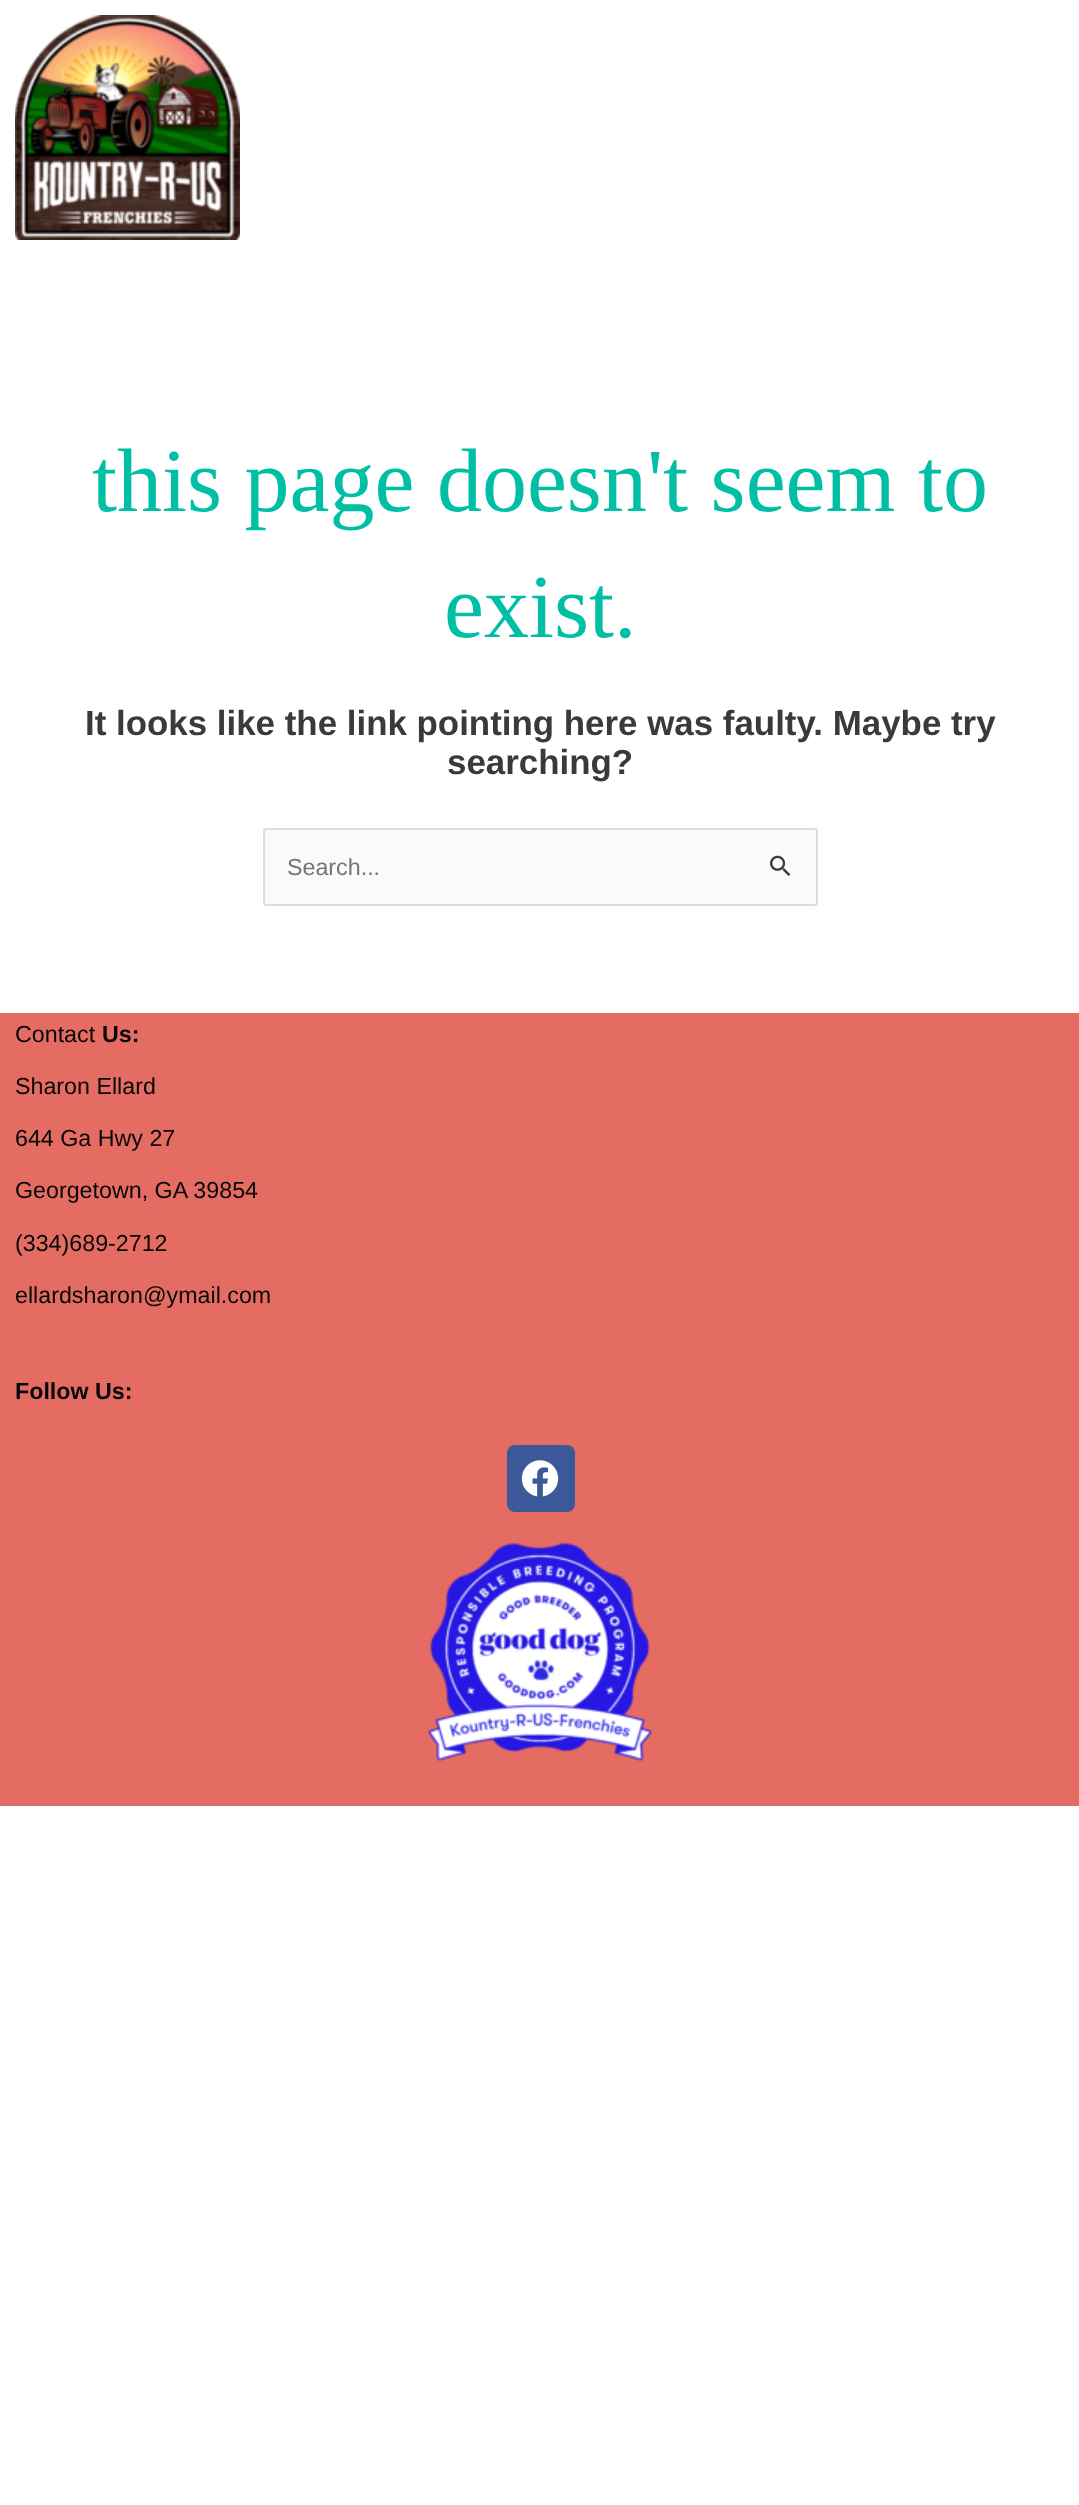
<svg xmlns="http://www.w3.org/2000/svg" width="1079" height="2505" viewBox="0 0 1079 2505">
  <style>
    .t1 { font: 90px Liberation Serif; fill: #00bfa5; }
    .t2 { font: bold 34.9px Liberation Sans; fill: #3a3a3a; }
    .t3 { font: 23.25px Liberation Sans; fill: #757575; }
    .t4 { font: 23.25px Liberation Sans; fill: #070707; }
    .t5 { font: bold 23.25px Liberation Sans; fill: #070707; }
  </style>
  <rect width="100%" height="100%" fill="#fff"/>
  <image x="15" y="15" width="225" height="225" href="images/1.png"/>
  <text x="92" y="511" class="t1">this page doesn't seem to</text>
  <text x="444" y="637" class="t1">exist.</text>
  <text x="85" y="735" class="t2">It looks like the link pointing here was faulty. Maybe try</text>
  <text x="447" y="774" class="t2">searching?</text>
  <rect x="264" y="829" width="553" height="76" rx="2" fill="#fafafa" stroke="#ddd" stroke-width="2"/>
  <text x="287" y="875" class="t3">Search...</text>
  <image x="770" y="855" width="21" height="21" href="images/2.png"/>
  <rect x="0" y="1013" width="1079" height="793" fill="#e56c62"/>
  <text x="15" y="1042" class="t4">Contact</text>
  <text x="102" y="1042" class="t5">Us:</text>
  <text x="15" y="1094" class="t4">Sharon Ellard</text>
  <text x="15" y="1146" class="t4">644 Ga Hwy 27</text>
  <text x="15" y="1198" class="t4">Georgetown, GA 39854</text>
  <text x="15" y="1251" class="t4">(334)689-2712</text>
  <text x="15" y="1303" class="t4">ellardsharon@ymail.com</text>
  <text x="15" y="1399" class="t5">Follow Us:</text>
  <rect x="507" y="1445" width="68" height="67" rx="8" fill="#3b5998"/>
  <image x="521" y="1460" width="38" height="37" href="images/3.png"/>
  <image x="427" y="1542" width="226" height="220" href="images/4.png"/>
</svg>
